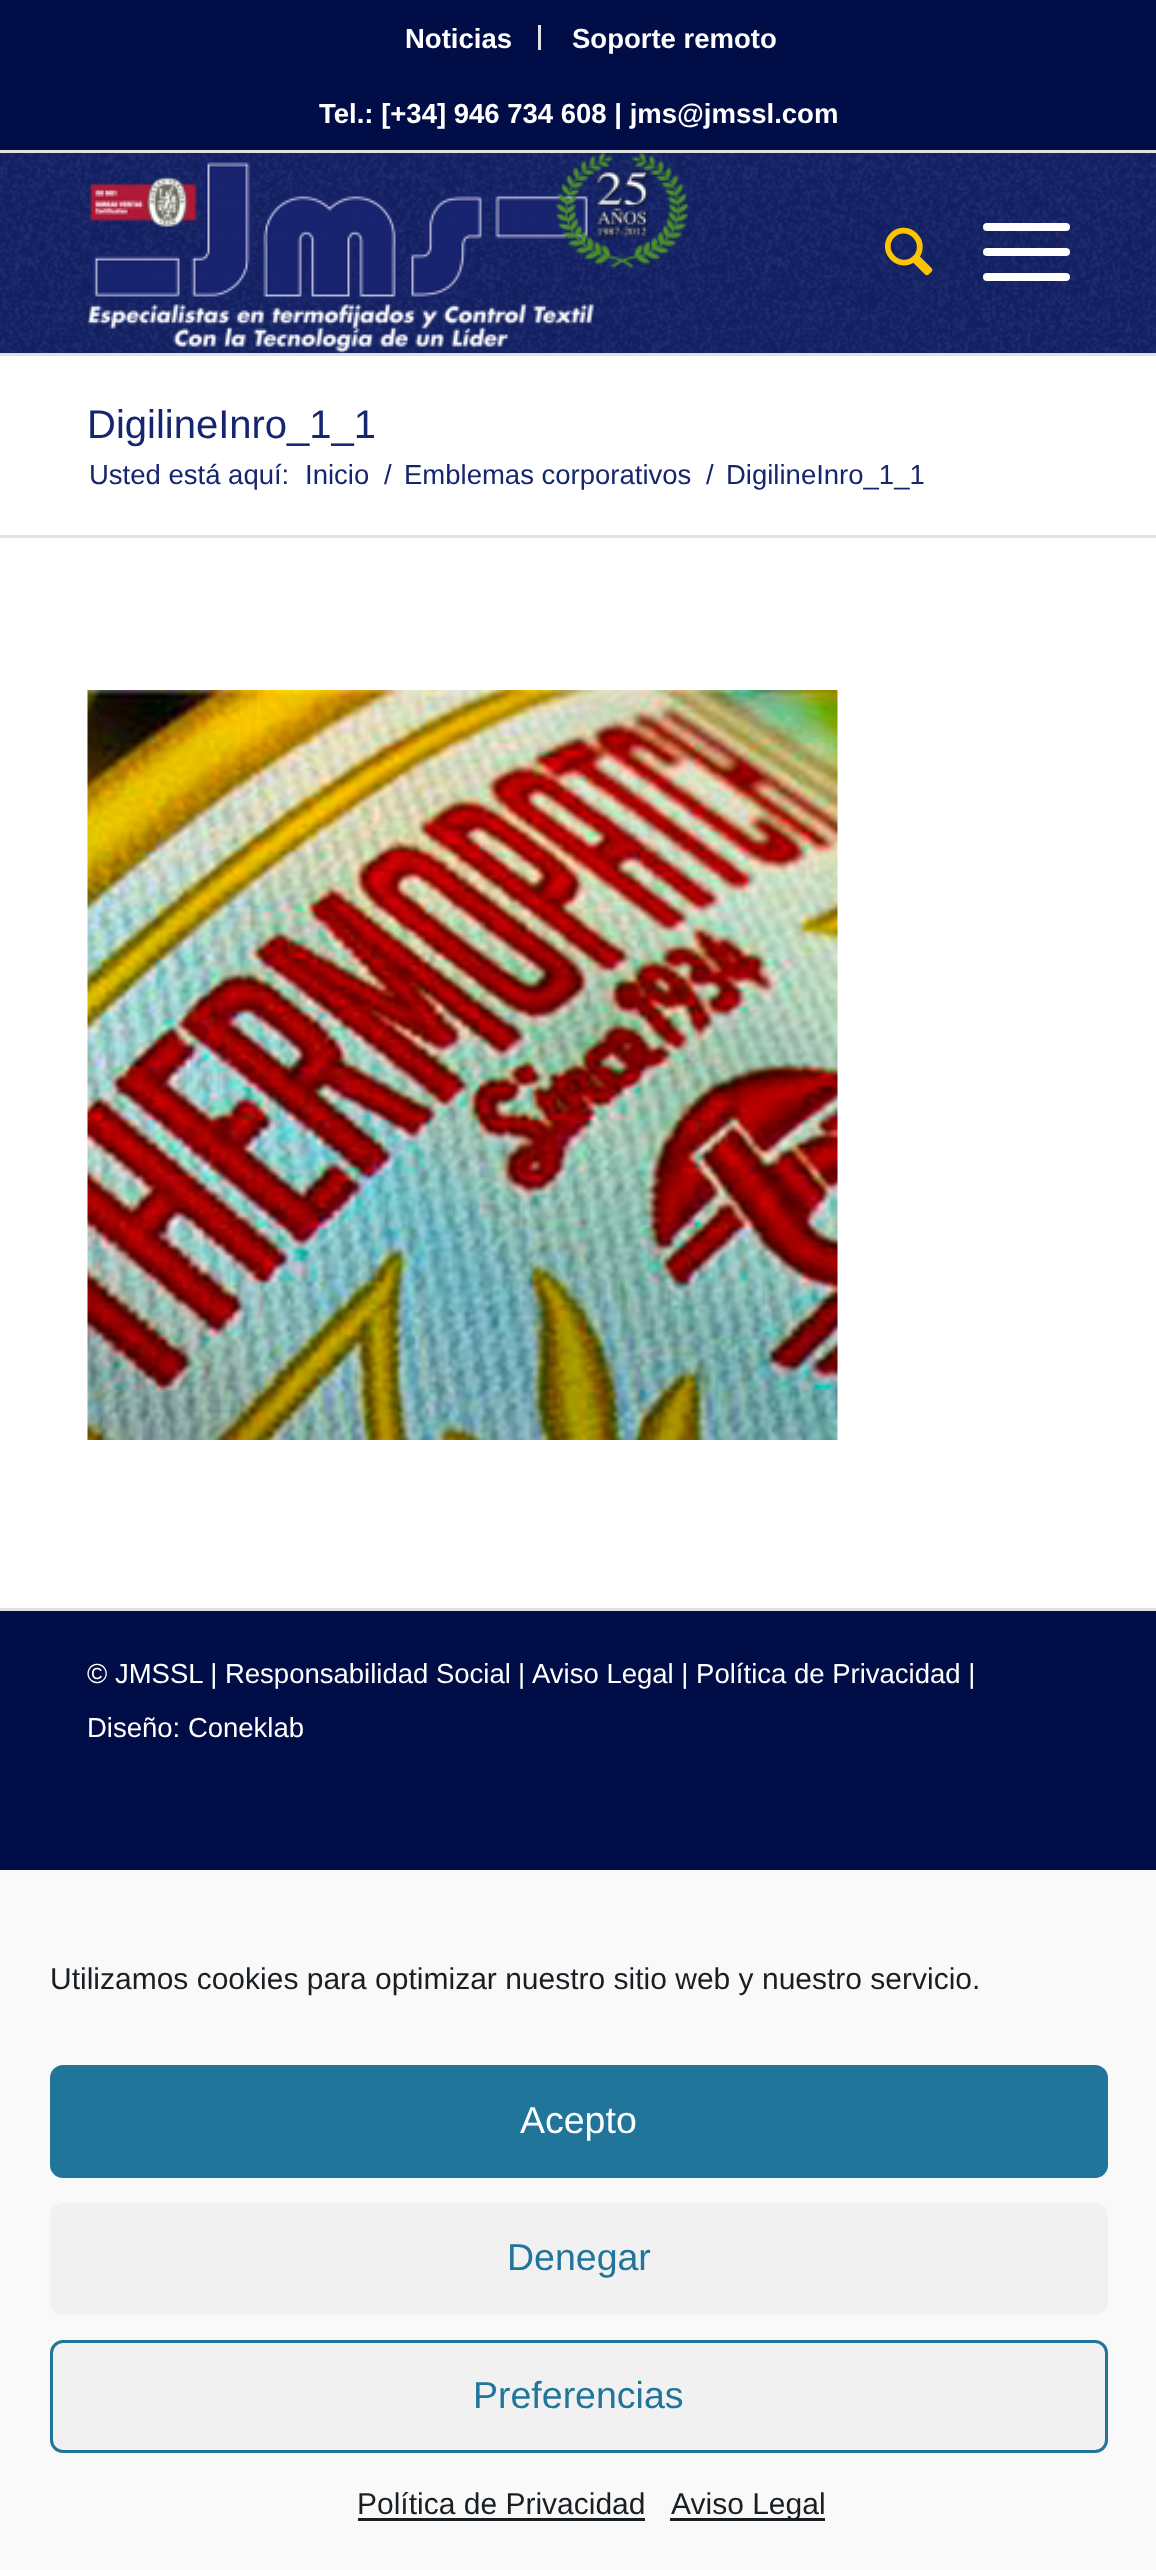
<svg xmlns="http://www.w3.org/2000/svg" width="1156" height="2570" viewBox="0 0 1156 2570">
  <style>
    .t1 { font: bold 27.5px Liberation Sans; fill: #fff; }
    .t2 { font: 40px Liberation Sans; fill: #15256f; }
    .t3 { font: 27.5px Liberation Sans; fill: #15256f; }
    .t4 { font: 27.5px Liberation Sans; fill: #fff; }
    .t5 { font: 30px Liberation Sans; fill: #191e23; }
    .t6 { font: 37.5px Liberation Sans; fill: #fff; }
    .t7 { font: 37.5px Liberation Sans; fill: #21759b; }
  </style>
  <rect width="100%" height="100%" fill="#000d47"/>
  <rect x="0" y="150" width="1156" height="3" fill="#e1e1e1"/>
  <rect x="538" y="25" width="3" height="25" fill="#e1e1e1"/>
  <text x="405" y="48" class="t1">Noticias</text>
  <text x="572" y="48" class="t1">Soporte remoto</text>
  <text x="319" y="123" class="t1">Tel.: [+34] 946 734 608 | jms@jmssl.com</text>
  <rect x="0" y="153" width="1156" height="200" fill="#15256f"/>
  <image x="0" y="153" width="1156" height="200" href="images/1.png"/>
  <rect x="0" y="353" width="1156" height="3" fill="#e1e1e1"/>
  <image x="87" y="153" width="601" height="200" href="images/2.png"/>
  <image x="885" y="227" width="48" height="49" href="images/3.png"/>
  <rect x="983" y="248" width="87" height="8" rx="4" fill="#fff"/>
  <rect x="983" y="223" width="87" height="8" rx="4" fill="#fff"/>
  <rect x="983" y="273" width="87" height="8" rx="4" fill="#fff"/>
  <rect x="0" y="356" width="1156" height="179" fill="#fff"/>
  <text x="87" y="438" class="t2">DigilineInro_1_1</text>
  <text x="89" y="484" class="t3">Usted está aquí:</text>
  <text x="305" y="484" class="t3">Inicio</text>
  <text x="384" y="484" class="t3">/</text>
  <text x="404" y="484" class="t3">Emblemas corporativos</text>
  <text x="706" y="484" class="t3">/</text>
  <text x="726" y="484" class="t3">DigilineInro_1_1</text>
  <rect x="0" y="538" width="1156" height="1070" fill="#fff"/>
  <rect x="0" y="535" width="1156" height="3" fill="#e1e1e1"/>
  <image x="87" y="690" width="751" height="750" href="images/4.png"/>
  <rect x="0" y="1608" width="1156" height="3" fill="#e1e1e1"/>
  <text x="87" y="1683" class="t4">© JMSSL | Responsabilidad Social</text>
  <text x="518" y="1683" class="t4">|</text>
  <text x="532" y="1683" class="t4">Aviso Legal | Política de Privacidad |</text>
  <text x="87" y="1737" class="t4">Diseño: Coneklab</text>
  <rect x="0" y="1895" width="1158" height="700" fill="#00000030" filter="blur(25px)"/>
  <rect x="0" y="1870" width="1156" height="700" fill="#f9f9f9"/>
  <text x="50" y="1989" class="t5">Utilizamos cookies para optimizar nuestro sitio web y nuestro servicio.</text>
  <rect x="51.5" y="2066.5" width="1055" height="110" rx="11.5" fill="#21759b" stroke="#21759b" stroke-width="3"/>
  <text x="520" y="2133" class="t6">Acepto</text>
  <rect x="50" y="2203" width="1058" height="112" rx="13" fill="#f1f1f1"/>
  <text x="507" y="2270" class="t7">Denegar</text>
  <rect x="51.5" y="2341.5" width="1055" height="110" rx="11.5" fill="#f1f1f1" stroke="#21759b" stroke-width="3"/>
  <text x="473" y="2408" class="t7">Preferencias</text>
  <text x="357" y="2514" class="t5">Política de Privacidad</text>
  <rect x="358" y="2518" width="287" height="3" fill="#191e23"/>
  <rect x="670" y="2518" width="155" height="3" fill="#191e23"/>
  <text x="671" y="2514" class="t5">Aviso Legal</text>
</svg>
